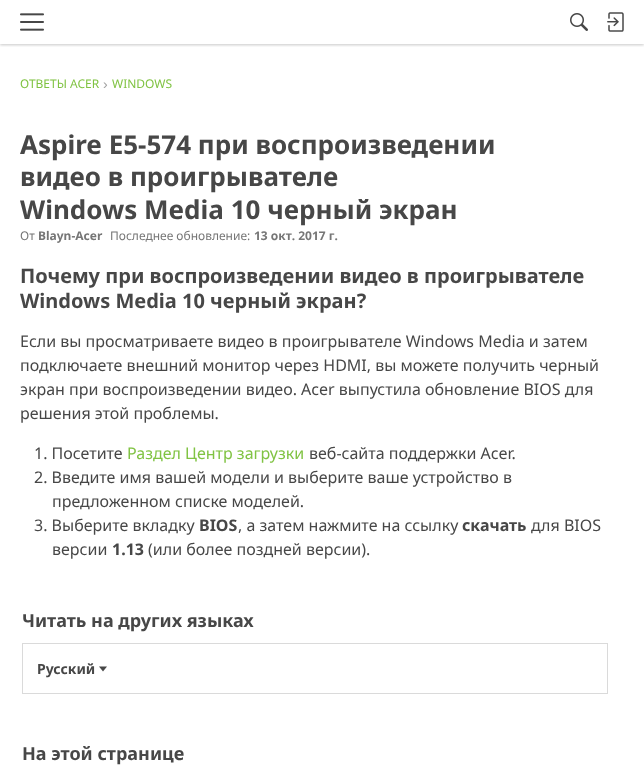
<svg xmlns="http://www.w3.org/2000/svg" width="644" height="776" viewBox="0 0 644 776">
  <style>
    .t1 { font: 12px Noto Sans; fill: #80c343; }
    .t2 { font: 14px Liberation Sans; fill: #a3a3a3; }
    .t3 { font: bold 26px Noto Sans; fill: #474747; }
    .t4 { font: 12px Noto Sans; fill: #767676; }
    .t5 { font: bold 12px Noto Sans; fill: #767676; }
    .t6 { font: bold 20px Noto Sans; fill: #474747; }
    .t7 { font: 16px Noto Sans; fill: #474747; }
    .t8 { font: 16px Noto Sans; fill: #80c343; }
    .t9 { font: bold 16px Noto Sans; fill: #474747; }
    .t10 { font: bold 18px Noto Sans; fill: #474747; }
    .t11 { font: bold 14px Noto Sans; fill: #474747; }
  </style>
  <defs>
    <clipPath id="clip1"><rect x="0" y="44" width="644" height="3"/></clipPath>
  </defs>
  <rect width="100%" height="100%" fill="#fff"/>
  <g clip-path="url(#clip1)">
    <rect x="0" y="1" width="644" height="44" fill="#00000038" filter="blur(1.5px)"/>
  </g>
  <image x="20" y="13" width="24" height="18" href="images/1.png"/>
  <image x="570" y="13" width="18" height="18" href="images/2.png"/>
  <image x="607" y="12" width="17" height="20" href="images/3.png"/>
  <text x="20" y="88" class="t1">ОТВЕТЫ ACER</text>
  <text x="103" y="89" class="t2">›</text>
  <text x="112" y="88" class="t1">WINDOWS</text>
  <text x="20" y="154" class="t3">Aspire E5-574 при воспроизведении</text>
  <text x="20" y="186" class="t3">видео в проигрывателе</text>
  <text x="20" y="219" class="t3">Windows Media 10 черный экран</text>
  <text x="20" y="240" class="t4">От</text>
  <text x="38" y="240" class="t5">Blayn-Acer</text>
  <text x="110" y="240" class="t4">Последнее обновление:</text>
  <text x="254" y="240" class="t5">13 окт. 2017 г.</text>
  <text x="20" y="283" class="t6">Почему при воспроизведении видео в проигрывателе</text>
  <text x="20" y="308" class="t6">Windows Media 10 черный экран?</text>
  <text x="20" y="347" class="t7">Если вы просматриваете видео в проигрывателе Windows Media и затем</text>
  <text x="20" y="371" class="t7">подключаете внешний монитор через HDMI, вы можете получить черный</text>
  <text x="20" y="395" class="t7">экран при воспроизведении видео. Acer выпустила обновление BIOS для</text>
  <text x="20" y="419" class="t7">решения этой проблемы.</text>
  <text x="34" y="459" class="t7">1. Посетите</text>
  <text x="127" y="459" class="t8">Раздел Центр загрузки</text>
  <text x="309" y="459" class="t7">веб-сайта поддержки Acer.</text>
  <text x="34" y="483" class="t7">2. Введите имя вашей модели и выберите ваше устройство в</text>
  <text x="52" y="507" class="t7">предложенном списке моделей.</text>
  <text x="34" y="531" class="t7">3. Выберите вкладку</text>
  <text x="199" y="531" class="t9">BIOS</text>
  <text x="238" y="531" class="t7">, а затем нажмите на ссылку</text>
  <text x="462" y="531" class="t9">скачать</text>
  <text x="531" y="531" class="t7">для BIOS</text>
  <text x="52" y="555" class="t7">версии</text>
  <text x="112" y="555" class="t9">1.13</text>
  <text x="148" y="555" class="t7">(или более поздней версии).</text>
  <text x="22" y="627" class="t10">Читать на других языках</text>
  <rect x="22.5" y="643.5" width="585" height="50" fill="none" stroke="#dadada"/>
  <text x="37" y="674" class="t11">Русский</text>
  <path d="M99 666.5H107L103 671.5Z" fill="#474747"/>
  <text x="22" y="760" class="t10">На этой странице</text>
</svg>
